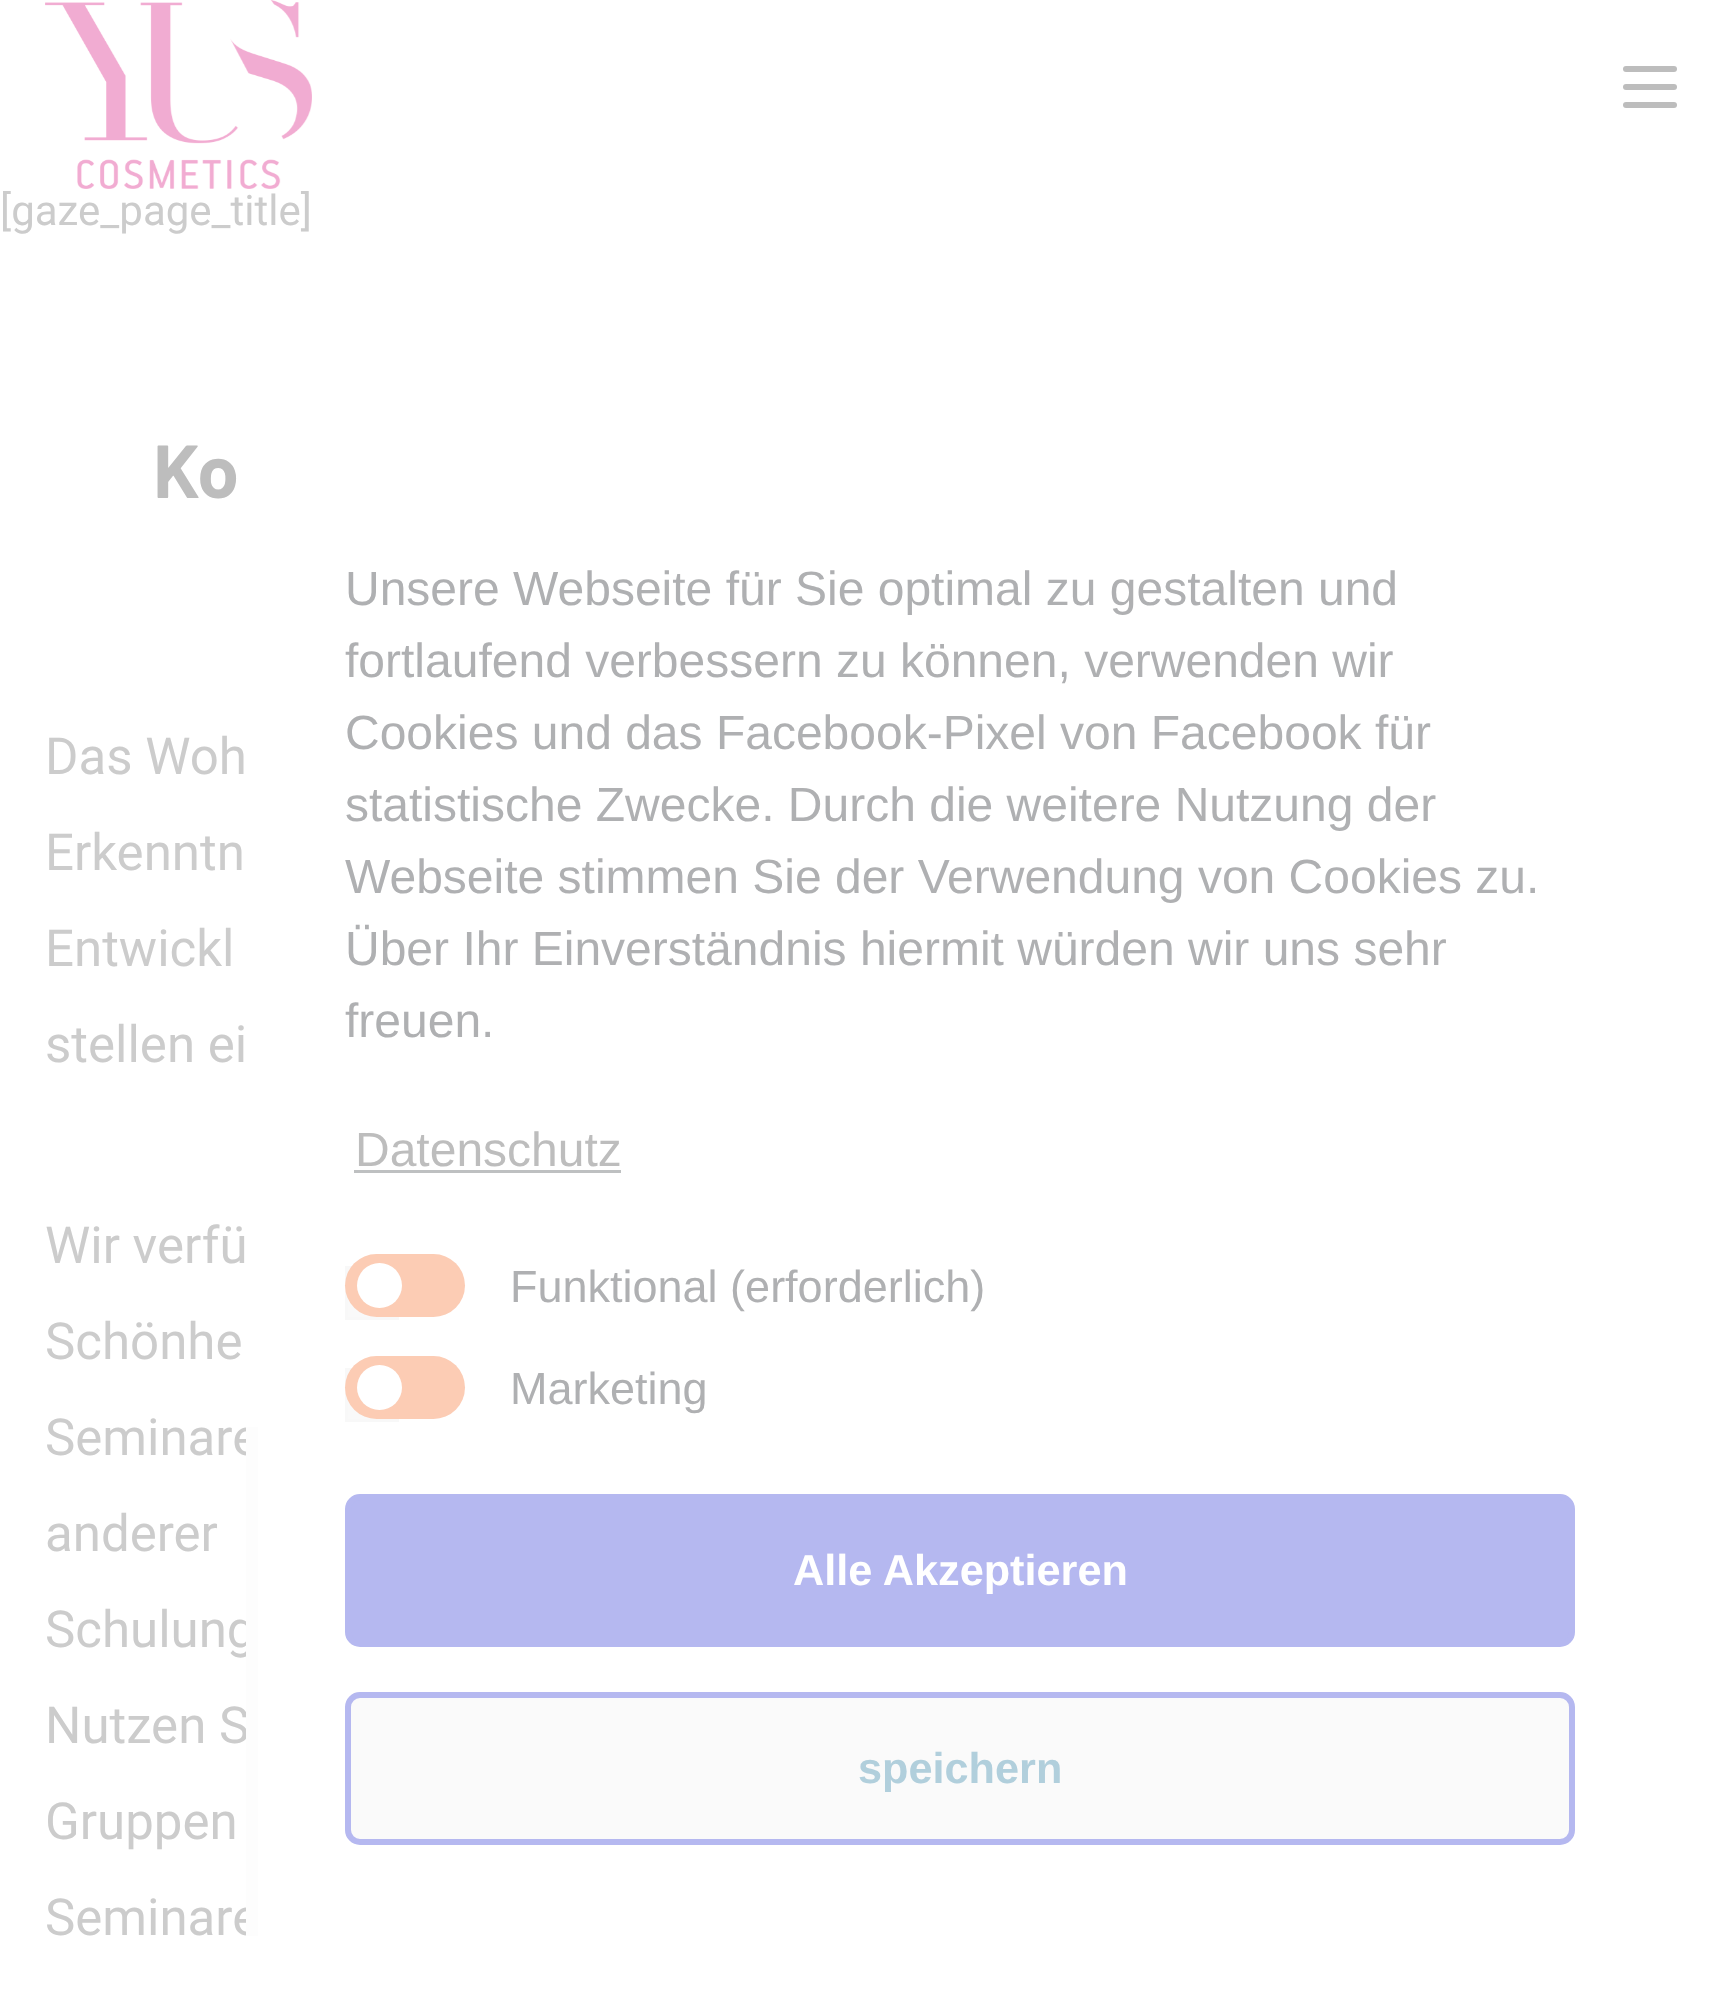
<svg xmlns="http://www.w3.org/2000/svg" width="1721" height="1990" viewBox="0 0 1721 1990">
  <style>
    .t1 { font: 42px Roboto; fill: #ccc; }
    .t2 { font: bold 75px Barlow; fill: #bdbdbd; }
    .t3 { font: 51px Roboto; fill: #ccc; }
    .t4 { font: 48px Liberation Sans; fill: #afb0b2; }
    .t5 { font: 48px Liberation Sans; fill: #bdbdbd; }
    .t6 { font: 45px Liberation Sans; fill: #afb0b2; }
    .t7 { font: bold 43.25px Liberation Sans; fill: #fff; }
    .t8 { font: bold 43.25px Liberation Sans; fill: #b1cfdc; }
  </style>
  <rect width="100%" height="100%" fill="#fff"/>
  <image x="45" y="0" width="267" height="189" href="images/1.png"/>
  <rect x="1623" y="66" width="54" height="6" rx="3" fill="#bdbdbd"/>
  <rect x="1623" y="84" width="54" height="6" rx="3" fill="#bdbdbd"/>
  <rect x="1623" y="102" width="54" height="6" rx="3" fill="#bdbdbd"/>
  <text x="0" y="225" class="t1">[gaze_page_title]</text>
  <text x="153" y="498" class="t2">Ko</text>
  <text x="45" y="774" class="t3">Das Woh</text>
  <text x="45" y="870" class="t3">Erkenntn</text>
  <text x="45" y="966" class="t3">Entwickl</text>
  <text x="45" y="1062" class="t3">stellen ei</text>
  <text x="45" y="1263" class="t3">Wir verfü</text>
  <text x="45" y="1359" class="t3">Schönhe</text>
  <text x="45" y="1455" class="t3">Seminare</text>
  <text x="45" y="1551" class="t3">anderer</text>
  <text x="45" y="1647" class="t3">Schulung</text>
  <text x="45" y="1743" class="t3">Nutzen S</text>
  <text x="45" y="1839" class="t3">Gruppen</text>
  <text x="45" y="1935" class="t3">Seminare</text>
  <rect x="246" y="1427" width="12" height="509" fill="#fdfdfd"/>
  <text x="345" y="605" class="t4">Unsere Webseite für Sie optimal zu gestalten und</text>
  <text x="345" y="677" class="t4">fortlaufend verbessern zu können, verwenden wir</text>
  <text x="345" y="749" class="t4">Cookies und das Facebook-Pixel von Facebook für</text>
  <text x="345" y="821" class="t4">statistische Zwecke. Durch die weitere Nutzung der</text>
  <text x="345" y="893" class="t4">Webseite stimmen Sie der Verwendung von Cookies zu.</text>
  <text x="345" y="965" class="t4">Über Ihr Einverständnis hiermit würden wir uns sehr</text>
  <text x="345" y="1037" class="t4">freuen.</text>
  <text x="355" y="1166" class="t5">Datenschutz</text>
  <rect x="354" y="1170" width="267" height="3" fill="#bec0c1"/>
  <rect x="348" y="1269" width="28" height="48" fill="#f9f9f9"/>
  <rect x="346.5" y="1267.5" width="51" height="51" fill="none" stroke="#f8f8f8" stroke-width="3"/>
  <rect x="345" y="1254" width="120" height="63" rx="31.5" fill="#fcccb4"/>
  <circle cx="379.5" cy="1285.5" r="22.5" fill="#fff"/>
  <text x="510" y="1302" class="t6">Funktional (erforderlich)</text>
  <rect x="348" y="1371" width="28" height="48" fill="#f9f9f9"/>
  <rect x="346.5" y="1369.5" width="51" height="51" fill="none" stroke="#f8f8f8" stroke-width="3"/>
  <rect x="345" y="1356" width="120" height="63" rx="31.5" fill="#fcccb4"/>
  <circle cx="379.5" cy="1387.5" r="22.5" fill="#fff"/>
  <text x="510" y="1404" class="t6">Marketing</text>
  <rect x="348" y="1497" width="1224" height="147" rx="12" fill="#b5b8f0" stroke="#b5b8f0" stroke-width="6"/>
  <text x="793" y="1585" class="t7">Alle Akzeptieren</text>
  <rect x="348" y="1695" width="1224" height="147" rx="12" fill="#fafafa" stroke="#b5b8f0" stroke-width="6"/>
  <text x="858" y="1783" class="t8">speichern</text>
</svg>
